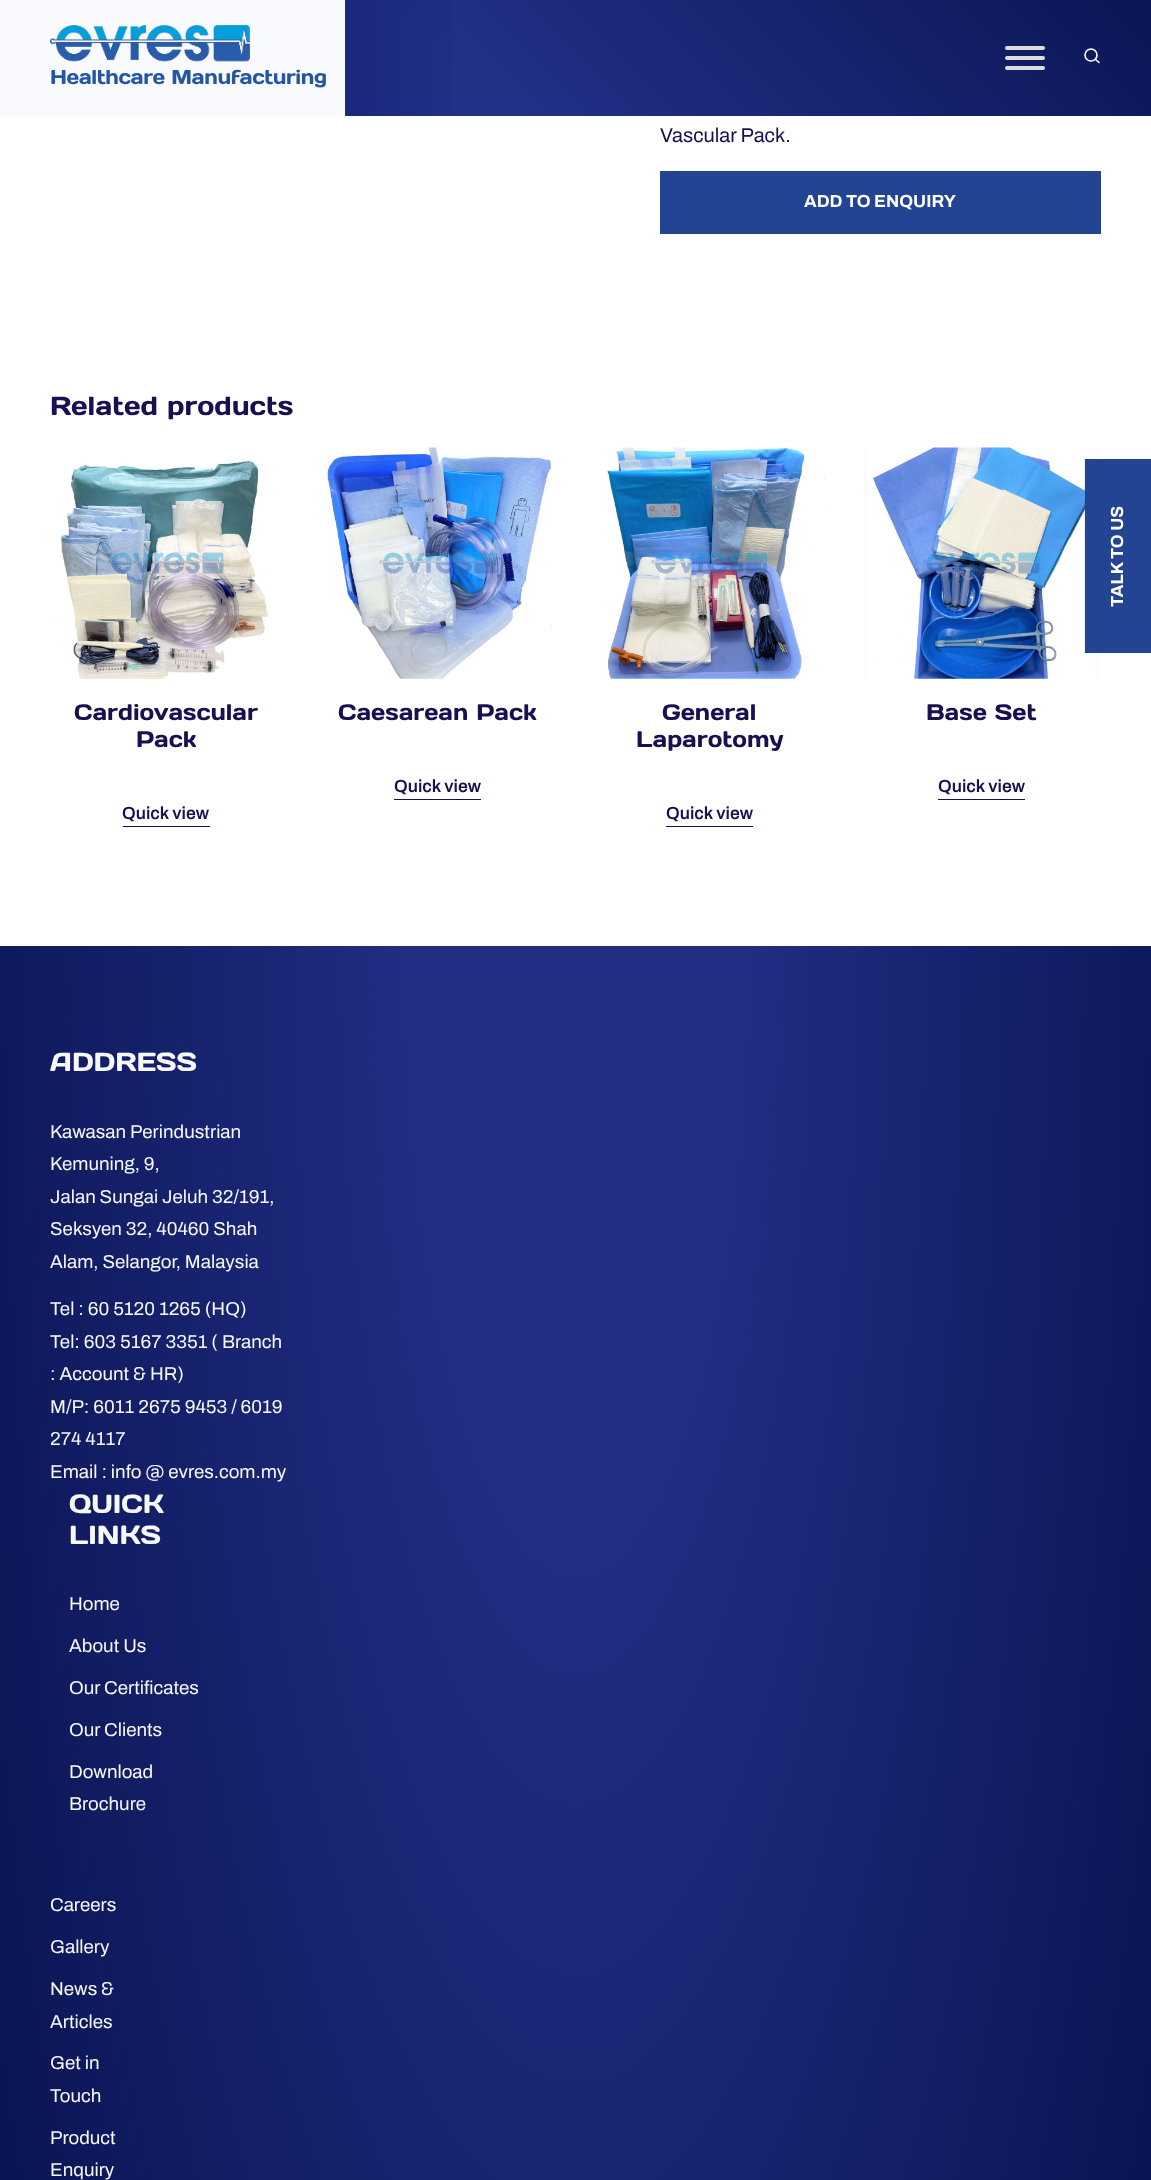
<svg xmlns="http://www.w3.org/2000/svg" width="1151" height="2180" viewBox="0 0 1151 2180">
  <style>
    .t1 { font: 20px Days One; letter-spacing: -0.4px; fill: #2556a2; }
    .t2 { font: 20px Archivo; fill: #171151; }
    .t3 { font: bold 17.5px Archivo; fill: #fff; }
    .t4 { font: 26.25px Days One; fill: #171151; }
    .t5 { font: 22.5px Days One; fill: #171151; }
    .t6 { font: 600 17.5px Archivo; fill: #171151; }
    .t7 { font: 26.25px Days One; fill: #f7f8f9; }
    .t8 { font: 18.75px Archivo; fill: #f7f8f9; }
  </style>
  <defs>
    <linearGradient id="g1" gradientUnits="userSpaceOnUse" x1="259" y1="375" x2="893" y2="-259"><stop offset="0.4" stop-color="#233187"/><stop offset="1" stop-color="#0b1556"/></linearGradient>
    <linearGradient id="g2" gradientUnits="userSpaceOnUse" x1="0" y1="58" x2="1151" y2="58"><stop offset="0.3" stop-color="#f9fafd"/><stop offset="0.3" stop-color="#0e1a6a" stop-opacity="0.4"/><stop offset="0.42" stop-color="#0e1a6a" stop-opacity="0"/></linearGradient>
    <radialGradient id="g3" gradientUnits="userSpaceOnUse" cx="0" cy="0" r="1" gradientTransform="matrix(814 0 0 2957 576 946)"><stop offset="0.2" stop-color="#212e82"/><stop offset="0.8" stop-color="#0b1556"/></radialGradient>
  </defs>
  <rect width="100%" height="100%" fill="#fff"/>
  <rect x="345" y="0" width="806" height="116" fill="url(#g1)"/>
  <rect x="0" y="0" width="454" height="116" fill="url(#g2)"/>
  <rect x="1005" y="46" width="40" height="4" rx="2" fill="#ddd"/>
  <rect x="1005" y="56" width="40" height="4" rx="2" fill="#ddd"/>
  <rect x="1005" y="66" width="40" height="4" rx="2" fill="#ddd"/>
  <circle cx="1091" cy="55" r="6" fill="none" stroke="#fff" stroke-width="1.6"/>
  <path d="M1099 62.5L1095.5 59.5" fill="none" stroke="#fff" stroke-width="1.6" stroke-linecap="round" stroke-linejoin="round"/>
  <image x="50" y="25" width="200" height="37" href="images/1.png"/>
  <text x="50" y="84" class="t1">Healthcare Manufacturing</text>
  <text x="660" y="142" class="t2">Vascular Pack.</text>
  <rect x="660" y="171" width="441" height="63" fill="#224493"/>
  <text x="804" y="207" class="t3">ADD TO ENQUIRY</text>
  <text x="50" y="415" class="t4">Related products</text>
  <image x="51" y="460" width="217" height="219" href="images/2.png"/>
  <text x="74" y="720" class="t5">Cardiovascular</text>
  <text x="136" y="747" class="t5">Pack</text>
  <text x="122" y="819" class="t6">Quick view</text>
  <rect x="123" y="826" width="87" height="1" fill="#171151"/>
  <image x="326" y="447" width="227" height="232" href="images/3.png"/>
  <text x="338" y="720" class="t5">Caesarean Pack</text>
  <text x="394" y="792" class="t6">Quick view</text>
  <rect x="394" y="799" width="87" height="1" fill="#171151"/>
  <image x="606" y="447" width="219" height="232" href="images/4.png"/>
  <text x="662" y="720" class="t5">General</text>
  <text x="636" y="747" class="t5">Laparotomy</text>
  <text x="666" y="819" class="t6">Quick view</text>
  <rect x="666" y="826" width="87" height="1" fill="#171151"/>
  <image x="865" y="447" width="233" height="232" href="images/5.png"/>
  <text x="926" y="720" class="t5">Base Set</text>
  <text x="938" y="792" class="t6">Quick view</text>
  <rect x="938" y="799" width="87" height="1" fill="#171151"/>
  <rect x="0" y="946" width="1151" height="1234" fill="url(#g3)"/>
  <rect x="1086" y="460" width="64" height="192" fill="#224493"/>
  <path d="M1085.5 652.5V459.5H1150.5V652.5Z" fill="none" stroke="#224493" stroke-width="1.2"/>
  <text x="1123" y="607" transform="rotate(-90 1123 607)" class="t3">TALK TO US</text>
  <text x="50" y="1071" class="t7">ADDRESS</text>
  <text x="50" y="1138" class="t8">Kawasan Perindustrian</text>
  <text x="50" y="1170" class="t8">Kemuning, 9,</text>
  <text x="50" y="1203" class="t8">Jalan Sungai Jeluh 32/191,</text>
  <text x="50" y="1235" class="t8">Seksyen 32, 40460 Shah</text>
  <text x="50" y="1268" class="t8">Alam, Selangor, Malaysia</text>
  <text x="50" y="1315" class="t8">Tel : 60 5120 1265 (HQ)</text>
  <text x="50" y="1348" class="t8">Tel: 603 5167 3351 ( Branch</text>
  <text x="50" y="1380" class="t8">: Account &amp; HR)</text>
  <text x="50" y="1413" class="t8">M/P: 6011 2675 9453 / 6019</text>
  <text x="50" y="1445" class="t8">274 4117</text>
  <text x="50" y="1478" class="t8">Email : info @ evres.com.my</text>
  <text x="69" y="1513" class="t7">QUICK</text>
  <text x="69" y="1544" class="t7">LINKS</text>
  <text x="69" y="1610" class="t8">Home</text>
  <text x="69" y="1652" class="t8">About Us</text>
  <text x="69" y="1694" class="t8">Our Certificates</text>
  <text x="69" y="1736" class="t8">Our Clients</text>
  <text x="69" y="1778" class="t8">Download</text>
  <text x="69" y="1810" class="t8">Brochure</text>
  <text x="50" y="1911" class="t8">Careers</text>
  <text x="50" y="1953" class="t8">Gallery</text>
  <text x="50" y="1995" class="t8">News &amp;</text>
  <text x="50" y="2028" class="t8">Articles</text>
  <text x="50" y="2069" class="t8">Get in</text>
  <text x="50" y="2102" class="t8">Touch</text>
  <text x="50" y="2144" class="t8">Product</text>
  <text x="50" y="2176" class="t8">Enquiry</text>
</svg>
